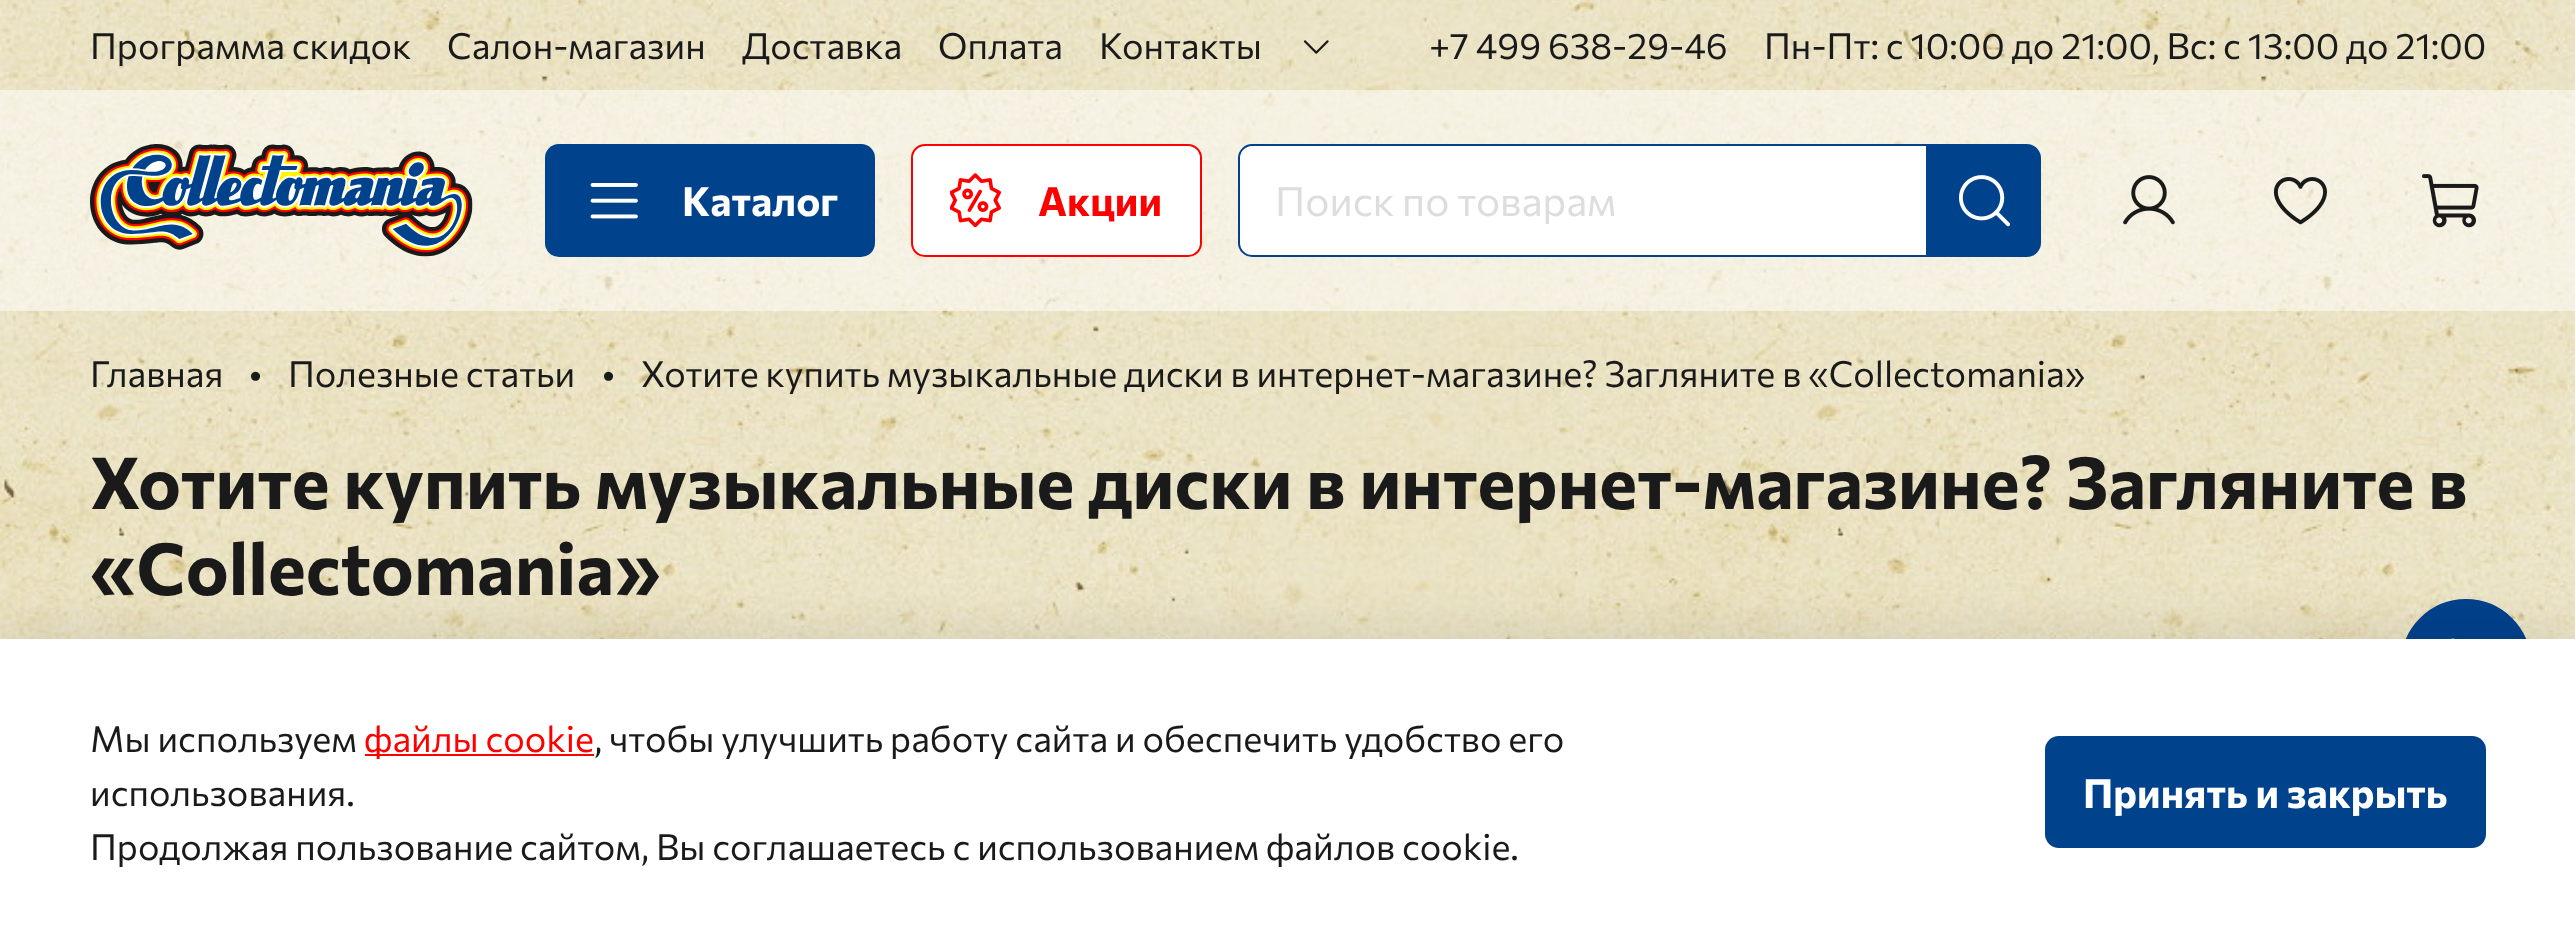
<svg xmlns="http://www.w3.org/2000/svg" width="2575" height="945" viewBox="0 0 2575 945">
  <style>
    .t1 { font: 36px Commissioner; fill: #1a1a1a; }
    .t2 { font: bold 40.5px Commissioner; fill: #fff; }
    .t3 { font: bold 40.5px Commissioner; fill: #f00; }
    .t4 { font: 40.5px Commissioner; fill: #ddd; }
    .t5 { font: bold 72px Commissioner; fill: #1a1a1a; }
    .t6 { font: 36px Commissioner; fill: #f00; }
  </style>
  <rect width="100%" height="100%" fill="#fff"/>
  <image x="0" y="0" width="2575" height="639" href="images/1.png"/>
  <text x="90" y="59" class="t1">Программа скидок</text>
  <text x="447" y="59" class="t1">Салон-магазин</text>
  <text x="742" y="59" class="t1">Доставка</text>
  <text x="938" y="59" class="t1">Оплата</text>
  <text x="1099" y="59" class="t1">Контакты</text>
  <image x="1303" y="40" width="26" height="14" href="images/2.png"/>
  <text x="1429" y="59" class="t1">+7 499 638-29-46</text>
  <text x="1764" y="59" class="t1">Пн-Пт: с 10:00 до 21:00, Вс: с 13:00 до 21:00</text>
  <rect x="0" y="90" width="2575" height="221" fill="#ffffff80"/>
  <image x="90" y="144" width="383" height="113" href="images/3.png"/>
  <rect x="545" y="144" width="330" height="113" rx="14" fill="#00428c"/>
  <image x="590" y="183" width="48" height="36" href="images/4.png"/>
  <text x="682" y="216" class="t2">Каталог</text>
  <rect x="912" y="145" width="289" height="111" rx="13" fill="#fff" stroke="#f00" stroke-width="2"/>
  <image x="950" y="173" width="51" height="54" href="images/5.png"/>
  <text x="1038" y="216" class="t3">Акции</text>
  <path d="M1252 145H1927V256H1252C1245 256 1239 250 1239 243V158C1239 151 1245 145 1252 145Z" fill="#fff" stroke="#00428c" stroke-width="2"/>
  <text x="1275" y="216" class="t4">Поиск по товарам</text>
  <path d="M1928 144H2027C2034.5 144 2041 150.5 2041 158V243C2041 250.5 2034.5 257 2027 257H1928Z" fill="#00428c"/>
  <image x="1959" y="175" width="52" height="52" href="images/6.png"/>
  <image x="2123" y="175" width="52" height="50" href="images/7.png"/>
  <image x="2273" y="177" width="54" height="48" href="images/8.png"/>
  <image x="2422" y="174" width="57" height="54" href="images/9.png"/>
  <text x="90" y="387" class="t1">Главная</text>
  <text x="248" y="387" class="t1">•</text>
  <text x="288" y="387" class="t1">Полезные статьи</text>
  <text x="601" y="387" class="t1">•</text>
  <text x="641" y="387" class="t1">Хотите купить музыкальные диски в интернет-магазине? Загляните в «Collectomania»</text>
  <text x="90" y="509" class="t5">Хотите купить музыкальные диски в интернет-магазине? Загляните в</text>
  <text x="90" y="595" class="t5">«Collectomania»</text>
  <circle cx="2466" cy="664" r="64" fill="#00428c" stroke="#00428c" stroke-width="2"/>
  <image x="2450" y="638" width="5" height="1" href="images/10.png"/>
  <rect x="-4" y="632" width="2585" height="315" fill="#00000017" filter="blur(26px)"/>
  <rect x="0" y="639" width="2575" height="306" fill="#fff"/>
  <text x="90" y="752" class="t1">Мы используем</text>
  <rect x="365" y="754" width="229" height="2" fill="#f00"/>
  <text x="364" y="752" class="t6">файлы cookie</text>
  <text x="594" y="752" class="t1">, чтобы улучшить работу сайта и обеспечить удобство его</text>
  <text x="90" y="806" class="t1">использования.</text>
  <text x="90" y="860" class="t1">Продолжая пользование сайтом, Вы соглашаетесь с использованием файлов cookie.</text>
  <rect x="2045" y="736" width="441" height="112" rx="14" fill="#00428c"/>
  <text x="2083" y="808" class="t2">Принять и закрыть</text>
</svg>
